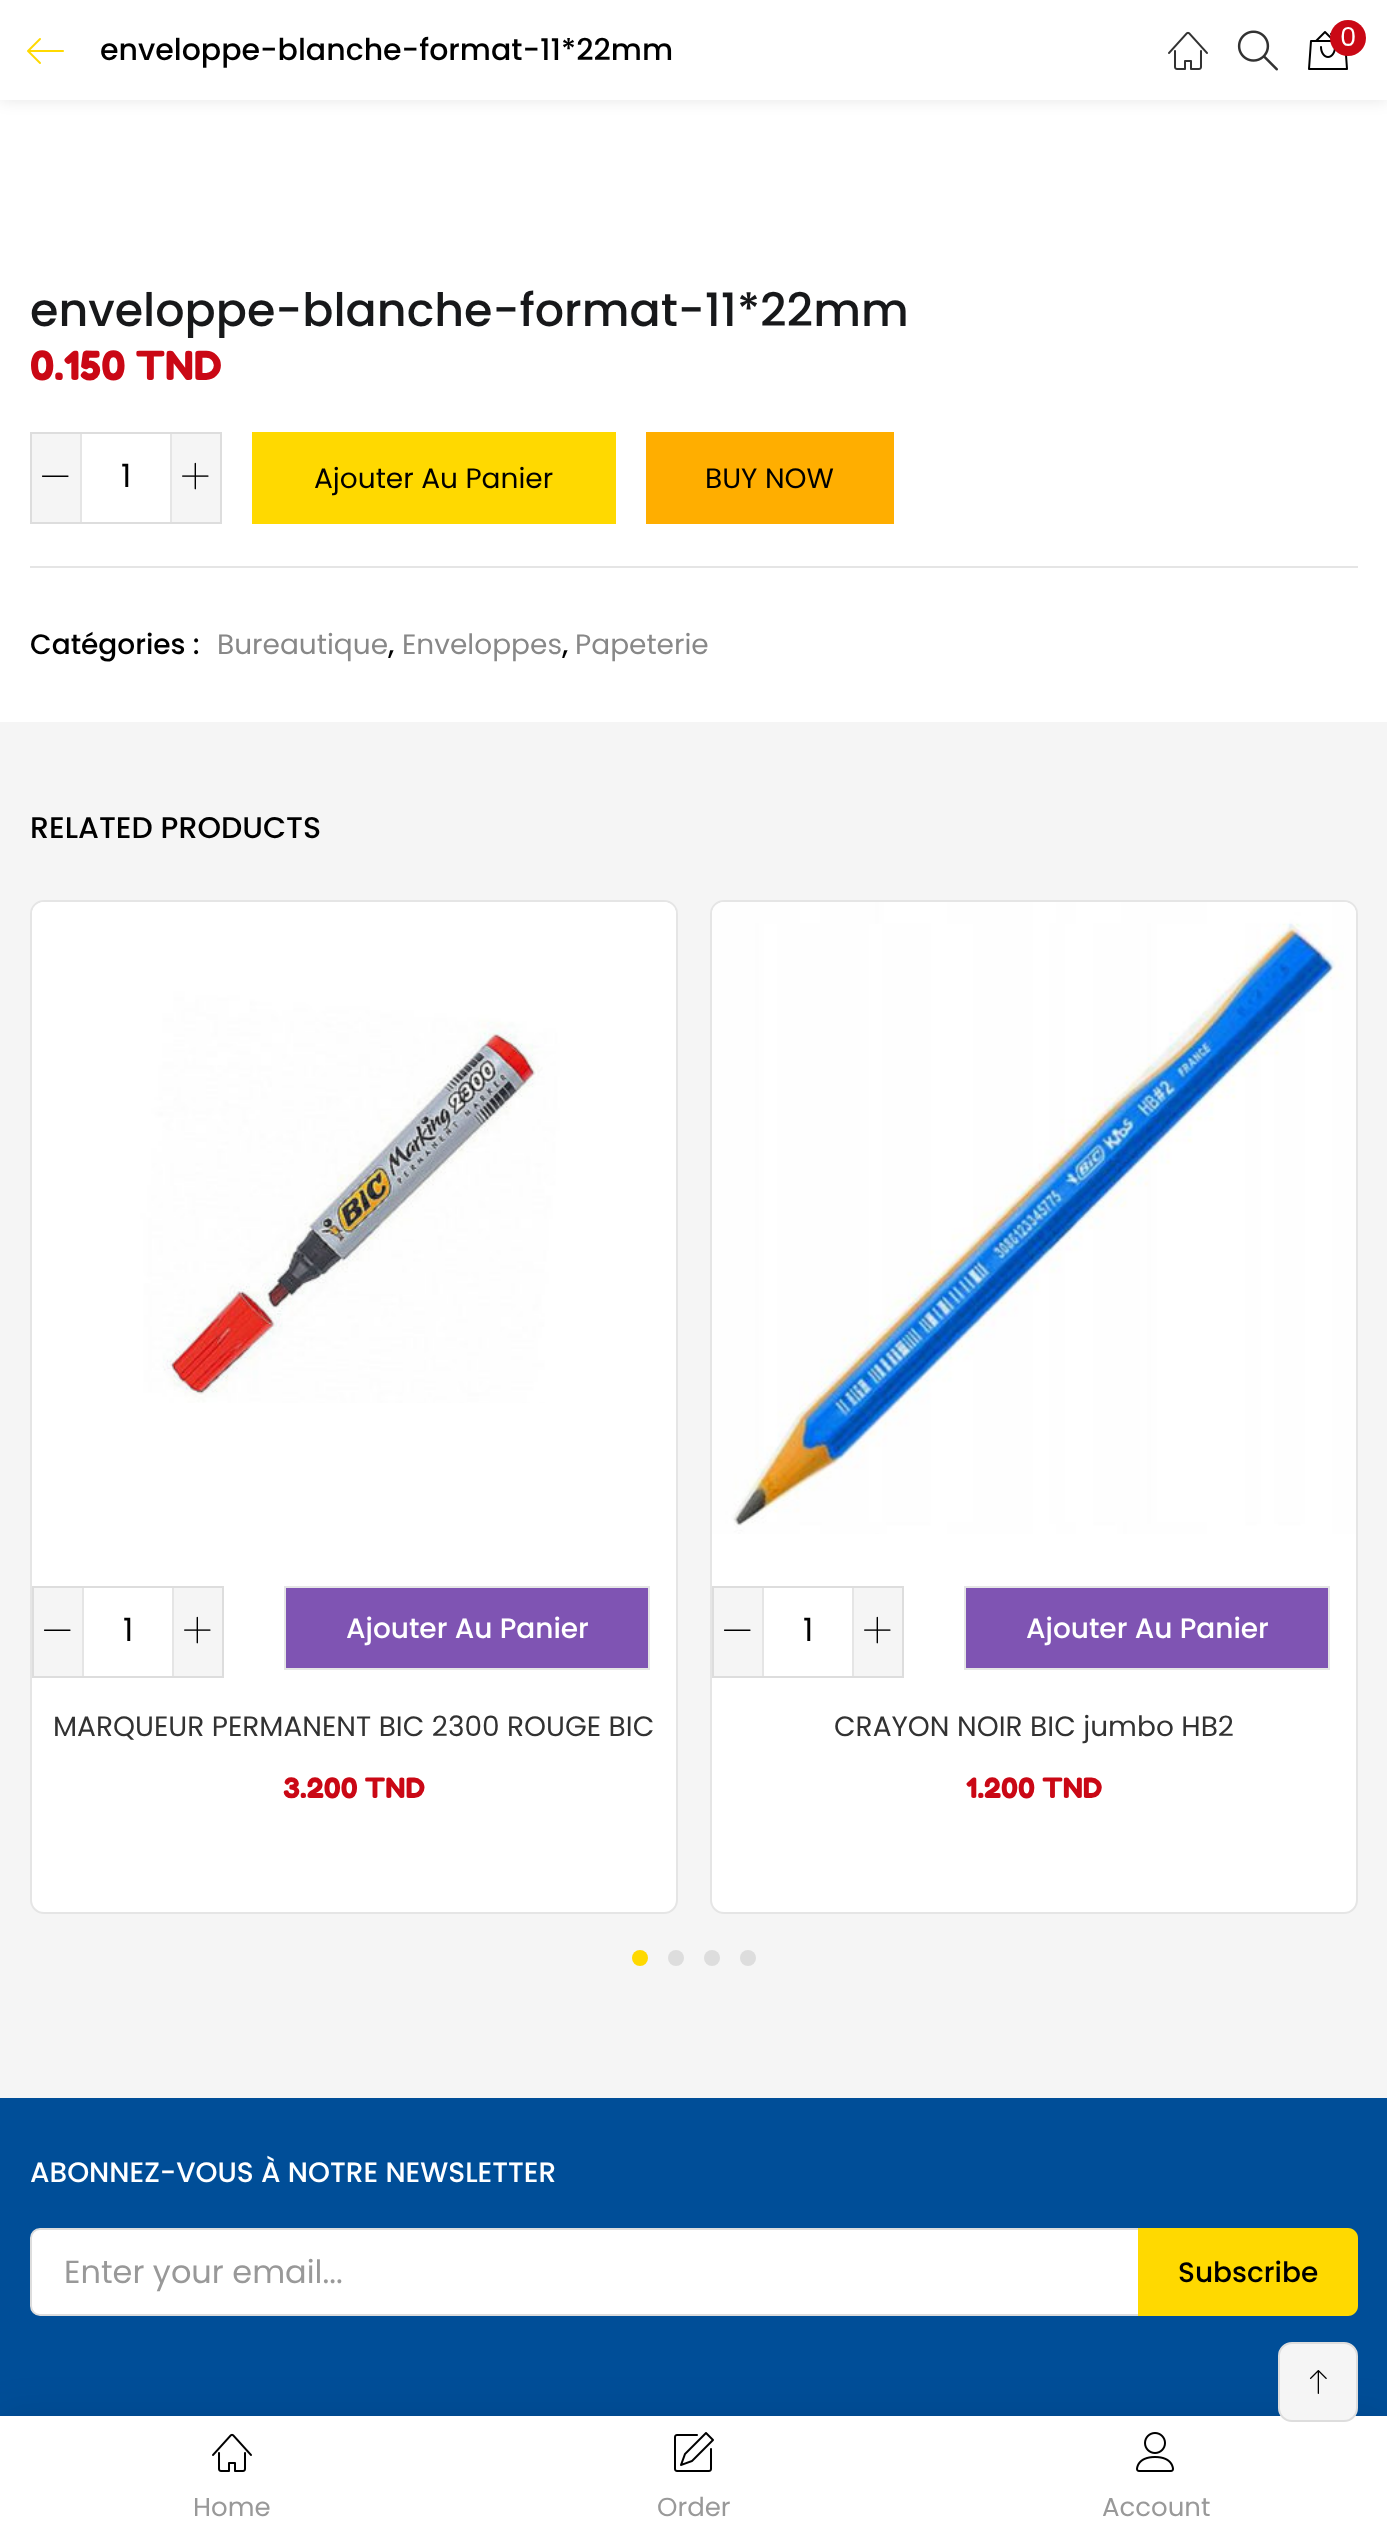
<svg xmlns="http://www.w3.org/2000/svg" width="1387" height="2541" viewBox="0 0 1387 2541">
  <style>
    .t1 { font: 500 30px Poppins; fill: #000; }
    .t2 { font: 26px Poppins; fill: #fff; }
    .t3 { font: 500 46px Poppins; fill: #17181a; }
    .t4 { font: 40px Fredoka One; fill: #ca0815; }
    .t5 { font: 32px Poppins; fill: #000; }
    .t6 { font: 28px Poppins; fill: #000; }
    .t7 { font: 500 28px Poppins; fill: #000; }
    .t8 { font: 28px Poppins; fill: #888; }
    .t9 { font: 500 28px Poppins; fill: #fff; }
    .t10 { font: 28px Poppins; fill: #323232; }
    .t11 { font: 28px Fredoka One; fill: #ca0815; }
    .t12 { font: 32px Poppins; fill: #999; }
    .t13 { font: 26px Poppins; fill: #999; }
  </style>
  <rect width="100%" height="100%" fill="#fff"/>
  <rect x="0" y="0" width="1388" height="100" fill="#0000001a" filter="blur(8px)"/>
  <rect x="0" y="0" width="1387" height="100" fill="#fff"/>
  <image x="27" y="38" width="37" height="26" href="images/1.png"/>
  <text x="100" y="60" class="t1">enveloppe-blanche-format-11*22mm</text>
  <image x="1168" y="31" width="40" height="39" href="images/2.png"/>
  <image x="1237" y="30" width="41" height="41" href="images/3.png"/>
  <image x="1308" y="31" width="40" height="39" href="images/4.png"/>
  <circle cx="1348" cy="38" r="18" fill="#ca0815"/>
  <text x="1340" y="46" class="t2">0</text>
  <text x="30" y="326" class="t3">enveloppe-blanche-format-11*22mm</text>
  <text x="30" y="380" class="t4">0.150 TND</text>
  <rect x="31" y="433" width="190" height="90" fill="none" stroke="#ddd" stroke-width="2"/>
  <rect x="32" y="434" width="48" height="88" fill="#f5f5f5"/>
  <rect x="80" y="434" width="2" height="88" fill="#e5e5e5"/>
  <path d="M68 477H42.5C42 477 41.5 475.5 42.5 475.5H68C69 475.5 68.5 477 68 477Z" fill="#000"/>
  <text x="121" y="487" class="t5">1</text>
  <rect x="172" y="434" width="48" height="88" fill="#f5f5f5"/>
  <rect x="170" y="434" width="2" height="88" fill="#e5e5e5"/>
  <image x="182" y="462" width="27" height="28" href="images/5.png"/>
  <rect x="252" y="432" width="364" height="92" fill="#ffd900"/>
  <text x="314" y="488" class="t6">Ajouter Au Panier</text>
  <rect x="646" y="432" width="248" height="92" fill="#ffae00"/>
  <text x="705" y="488" class="t6">BUY NOW</text>
  <rect x="30" y="566" width="1328" height="2" fill="#e5e5e5"/>
  <text x="30" y="654" class="t7">Catégories :</text>
  <text x="217" y="654" class="t8">Bureautique</text>
  <text x="388" y="654" class="t7">,</text>
  <text x="402" y="654" class="t8">Enveloppes</text>
  <text x="562" y="654" class="t7">,</text>
  <text x="575" y="654" class="t8">Papeterie</text>
  <rect x="0" y="722" width="1358" height="1376" fill="#f5f5f5"/>
  <rect x="1358" y="722" width="29" height="1376" fill="#f5f5f5"/>
  <text x="30" y="838" class="t1">RELATED PRODUCTS</text>
  <rect x="31" y="901" width="646" height="1012" rx="13" fill="#fff" stroke="#e5e5e5" stroke-width="2"/>
  <image x="32" y="902" width="644" height="501" href="images/6.png"/>
  <rect x="33" y="1587" width="190" height="90" fill="none" stroke="#ddd" stroke-width="2"/>
  <rect x="34" y="1588" width="48" height="88" fill="#f5f5f5"/>
  <rect x="82" y="1588" width="2" height="88" fill="#e5e5e5"/>
  <path d="M70 1631H44.5C44 1631 43.5 1629.5 44.5 1629.5H70C71 1629.5 70.5 1631 70 1631Z" fill="#000"/>
  <text x="123" y="1641" class="t5">1</text>
  <rect x="174" y="1588" width="48" height="88" fill="#f5f5f5"/>
  <rect x="172" y="1588" width="2" height="88" fill="#e5e5e5"/>
  <image x="184" y="1616" width="27" height="28" href="images/5.png"/>
  <rect x="285" y="1587" width="364" height="82" fill="#7f54b3" stroke="#e5e5e5" stroke-width="2"/>
  <text x="346" y="1638" class="t9">Ajouter Au Panier</text>
  <text x="53" y="1736" class="t10">MARQUEUR PERMANENT BIC 2300 ROUGE BIC</text>
  <text x="283" y="1798" class="t11">3.200 TND</text>
  <rect x="711" y="901" width="646" height="1012" rx="13" fill="#fff" stroke="#e5e5e5" stroke-width="2"/>
  <image x="712" y="902" width="644" height="632" href="images/7.png"/>
  <rect x="713" y="1587" width="190" height="90" fill="none" stroke="#ddd" stroke-width="2"/>
  <rect x="714" y="1588" width="48" height="88" fill="#f5f5f5"/>
  <rect x="762" y="1588" width="2" height="88" fill="#e5e5e5"/>
  <path d="M750 1631H724.5C724 1631 723.5 1629.5 724.5 1629.5H750C751 1629.5 750.5 1631 750 1631Z" fill="#000"/>
  <text x="803" y="1641" class="t5">1</text>
  <rect x="854" y="1588" width="48" height="88" fill="#f5f5f5"/>
  <rect x="852" y="1588" width="2" height="88" fill="#e5e5e5"/>
  <image x="864" y="1616" width="27" height="28" href="images/5.png"/>
  <rect x="965" y="1587" width="364" height="82" fill="#7f54b3" stroke="#e5e5e5" stroke-width="2"/>
  <text x="1026" y="1638" class="t9">Ajouter Au Panier</text>
  <text x="834" y="1736" class="t10">CRAYON NOIR BIC jumbo HB2</text>
  <text x="966" y="1798" class="t11">1.200 TND</text>
  <circle cx="640" cy="1958" r="8" fill="#ffd900"/>
  <circle cx="676" cy="1958" r="8" fill="#ddd"/>
  <circle cx="712" cy="1958" r="8" fill="#ddd"/>
  <circle cx="748" cy="1958" r="8" fill="#ddd"/>
  <rect x="0" y="2098" width="1387" height="318" fill="#004e98"/>
  <text x="30" y="2182" class="t9">ABONNEZ-VOUS À NOTRE NEWSLETTER</text>
  <path d="M40 2229H1139V2315H40C35 2315 31 2311 31 2306V2238C31 2233 35 2229 40 2229Z" fill="#fff" stroke="#ddd" stroke-width="2"/>
  <text x="64" y="2283" class="t12">Enter your email...</text>
  <path d="M1138 2228H1348C1353.5 2228 1358 2232.5 1358 2238V2306C1358 2311.5 1353.5 2316 1348 2316H1138Z" fill="#ffd900"/>
  <text x="1178" y="2282" class="t7">Subscribe</text>
  <rect x="0" y="2416" width="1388" height="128" fill="#0000001a" filter="blur(20px)"/>
  <rect x="0" y="2416" width="1387" height="125" fill="#fff"/>
  <rect x="1279" y="2343" width="78" height="78" rx="13" fill="#f5f5f5" stroke="#ddd" stroke-width="2"/>
  <image x="1309" y="2370" width="18" height="24" href="images/8.png"/>
  <image x="212" y="2433" width="40" height="39" href="images/9.png"/>
  <text x="193" y="2516" class="t13">Home</text>
  <image x="674" y="2432" width="40" height="40" href="images/10.png"/>
  <text x="657" y="2516" class="t13">Order</text>
  <image x="1136" y="2432" width="38" height="40" href="images/11.png"/>
  <text x="1102" y="2516" class="t13">Account</text>
</svg>
